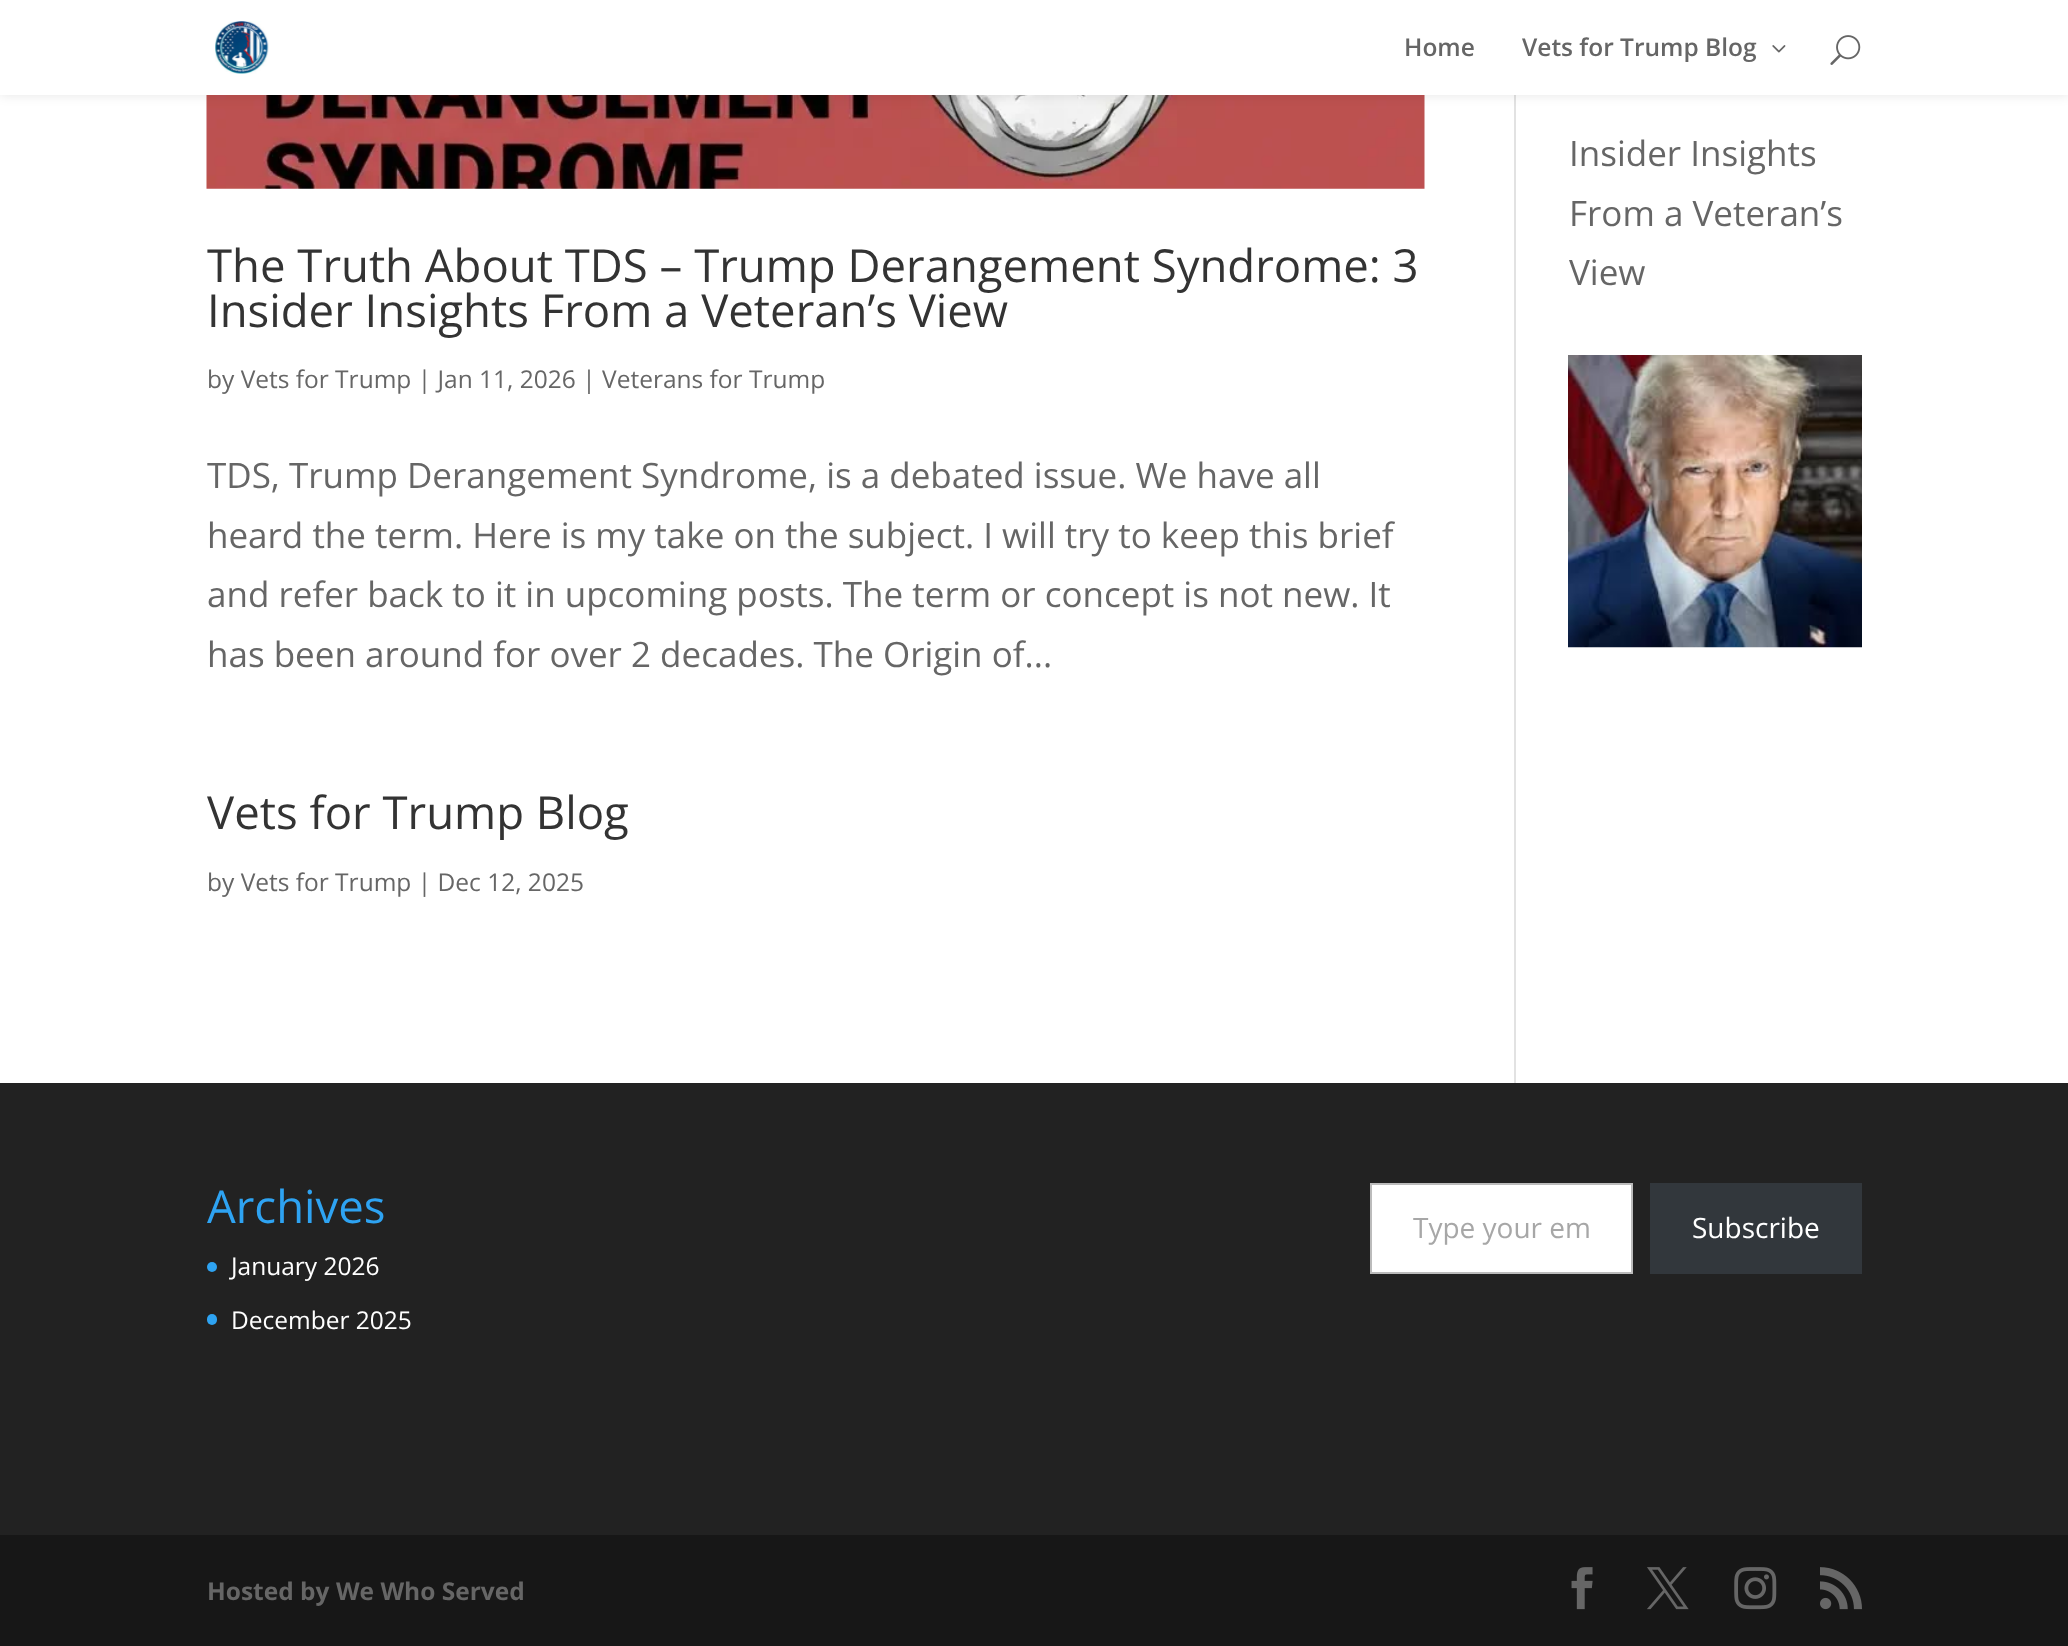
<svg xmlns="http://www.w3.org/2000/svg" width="2068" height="1646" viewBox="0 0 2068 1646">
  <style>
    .t1 { font: 600 24.5px Open Sans; fill: #666; }
    .t2 { font: 35px Open Sans; fill: #666; }
    .t3 { font: 45.5px Open Sans; fill: #333; }
    .t4 { font: 24.5px Open Sans; fill: #666; }
    .t5 { font: 45.5px Open Sans; fill: #2ea3f2; }
    .t6 { font: 24.5px Open Sans; fill: #fff; }
    .t7 { font: 28px Open Sans; fill: #a7a7a7; }
    .t8 { font: 28px Open Sans; fill: #fff; }
    .t9 { font: bold 24.5px Open Sans; fill: #666; }
  </style>
  <rect width="100%" height="100%" fill="#fff"/>
  <rect x="1514" y="95" width="2" height="988" fill="#e2e2e2"/>
  <image x="206" y="95" width="1219" height="94" href="images/5.png"/>
  <rect x="0" y="0" width="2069" height="95" fill="#0000001a" filter="blur(6px)"/>
  <rect x="0" y="0" width="2068" height="95" fill="#fff"/>
  <image x="215" y="21" width="54" height="53" href="images/1.png"/>
  <text x="1404" y="56" class="t1">Home</text>
  <text x="1522" y="56" class="t1">Vets for Trump Blog</text>
  <image x="1772" y="45" width="14" height="8" href="images/2.png"/>
  <image x="1830" y="35" width="31" height="30" href="images/3.png"/>
  <text x="1569" y="166" class="t2">Insider Insights</text>
  <text x="1569" y="226" class="t2">From a Veteran’s</text>
  <text x="1569" y="285" class="t2">View</text>
  <image x="1568" y="355" width="294" height="293" href="images/4.png"/>
  <text x="207" y="282" class="t3">The Truth About TDS – Trump Derangement Syndrome: 3</text>
  <text x="207" y="327" class="t3">Insider Insights From a Veteran’s View</text>
  <text x="207" y="388" class="t4">by Vets for Trump | Jan 11, 2026 | Veterans for Trump</text>
  <text x="207" y="488" class="t2">TDS, Trump Derangement Syndrome, is a debated issue. We have all</text>
  <text x="207" y="548" class="t2">heard the term. Here is my take on the subject. I will try to keep this brief</text>
  <text x="207" y="607" class="t2">and refer back to it in upcoming posts. The term or concept is not new. It</text>
  <text x="207" y="667" class="t2">has been around for over 2 decades. The Origin of...</text>
  <text x="207" y="829" class="t3">Vets for Trump Blog</text>
  <text x="207" y="891" class="t4">by Vets for Trump | Dec 12, 2025</text>
  <rect x="0" y="1083" width="2068" height="452" fill="#222"/>
  <text x="207" y="1223" class="t5">Archives</text>
  <circle cx="212" cy="1267" r="5" fill="#2ea3f2"/>
  <text x="231" y="1275" class="t6">January 2026</text>
  <rect x="207" y="1314" width="10" height="11" rx="5" fill="#2ea3f2"/>
  <text x="231" y="1329" class="t6">December 2025</text>
  <rect x="1371" y="1184" width="261" height="89" fill="#fff" stroke="#bbb" stroke-width="2"/>
  <text x="1413" y="1238" class="t7">Type your em</text>
  <rect x="1650" y="1183" width="212" height="91" fill="#32373c"/>
  <text x="1692" y="1238" class="t8">Subscribe</text>
  <rect x="0" y="1535" width="2068" height="111" fill="#171717"/>
  <text x="207" y="1600" class="t9">Hosted by We Who Served</text>
  <image x="1571" y="1567" width="22" height="43" href="images/6.png"/>
  <image x="1647" y="1567" width="42" height="43" href="images/7.png"/>
  <image x="1734" y="1567" width="43" height="43" href="images/8.png"/>
  <image x="1820" y="1567" width="42" height="43" href="images/9.png"/>
</svg>
